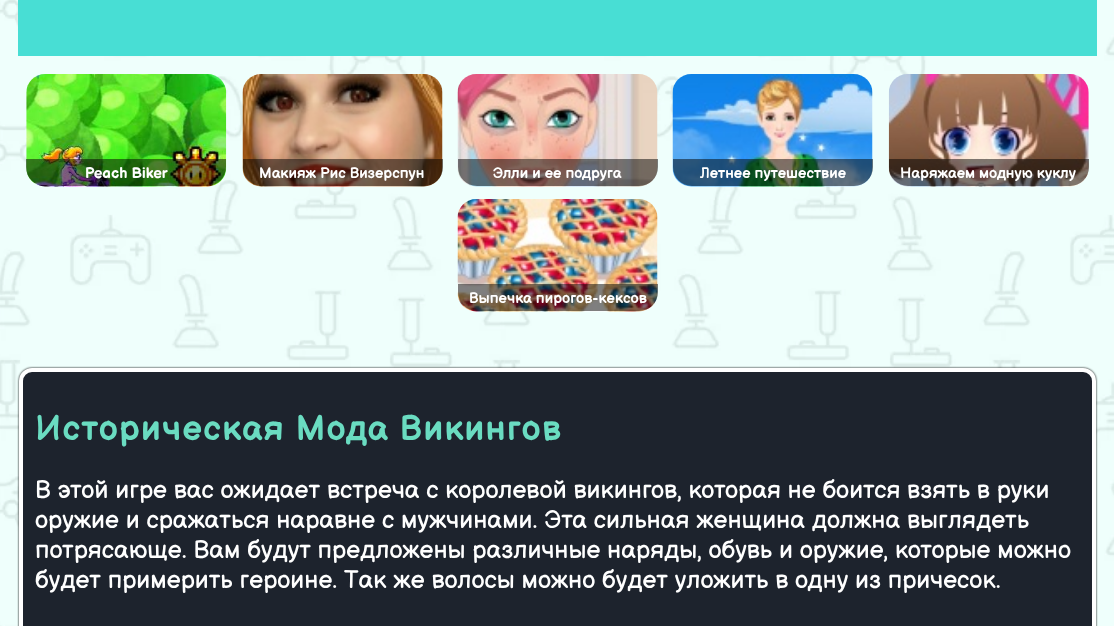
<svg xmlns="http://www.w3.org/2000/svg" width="1114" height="626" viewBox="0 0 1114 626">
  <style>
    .t1 { font: bold 15px Balsamiq Sans; fill: #fff; }
    .t2 { font: bold 35px Balsamiq Sans; letter-spacing: 1.25px; fill: #6adcc1; }
    .t3 { font: 25px Balsamiq Sans; fill: #fff; }
  </style>
  <rect width="100%" height="100%" fill="#fff"/>
  <image x="0" y="0" width="1114" height="626" href="images/1.png"/>
  <rect x="18" y="0" width="1079" height="56" fill="#48ded4"/>
  <image x="26" y="74" width="201" height="113" href="images/2.png"/>
  <path d="M26 159H226V167C226 177.5 217.5 186 207 186H45C34.5 186 26 177.5 26 167Z" fill="#00000080"/>
  <text x="85" y="178" class="t1">Peach Biker</text>
  <image x="242" y="74" width="201" height="113" href="images/3.png"/>
  <path d="M243 159H443V167C443 177.5 434.5 186 424 186H262C251.5 186 243 177.5 243 167Z" fill="#00000080"/>
  <text x="259" y="178" class="t1">Макияж Рис Визерспун</text>
  <image x="457" y="74" width="201" height="113" href="images/4.png"/>
  <path d="M458 159H658V167C658 177.5 649.5 186 639 186H477C466.5 186 458 177.5 458 167Z" fill="#00000080"/>
  <text x="493" y="178" class="t1">Элли и ее подруга</text>
  <image x="672" y="74" width="201" height="113" href="images/5.png"/>
  <path d="M673 159H873V167C873 177.5 864.5 186 854 186H692C681.5 186 673 177.5 673 167Z" fill="#00000080"/>
  <text x="700" y="178" class="t1">Летнее путешествие</text>
  <image x="888" y="74" width="201" height="113" href="images/6.png"/>
  <path d="M889 159H1089V167C1089 177.5 1080.5 186 1070 186H908C897.5 186 889 177.5 889 167Z" fill="#00000080"/>
  <text x="900" y="178" class="t1">Наряжаем модную куклу</text>
  <image x="457" y="199" width="201" height="113" href="images/7.png"/>
  <path d="M458 284H658V292C658 302.5 649.5 311 639 311H477C466.5 311 458 302.5 458 292Z" fill="#00000080"/>
  <text x="469" y="303" class="t1">Выпечка пирогов-кексов</text>
  <rect x="19" y="368" width="1077" height="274" rx="13" fill="#000" filter="blur(1px)"/>
  <rect x="21" y="370" width="1073" height="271" rx="11" fill="#1d232d" stroke="#fff" stroke-width="4"/>
  <text x="35" y="440" class="t2">Историческая Мода Викингов</text>
  <text x="35" y="498" class="t3">В этой игре вас ожидает встреча с королевой викингов, которая не боится взять в руки</text>
  <text x="35" y="528" class="t3">оружие и сражаться наравне с мужчинами. Эта сильная женщина должна выглядеть</text>
  <text x="35" y="558" class="t3">потрясающе. Вам будут предложены различные наряды, обувь и оружие, которые можно</text>
  <text x="35" y="588" class="t3">будет примерить героине. Так же волосы можно будет уложить в одну из причесок.</text>
</svg>
